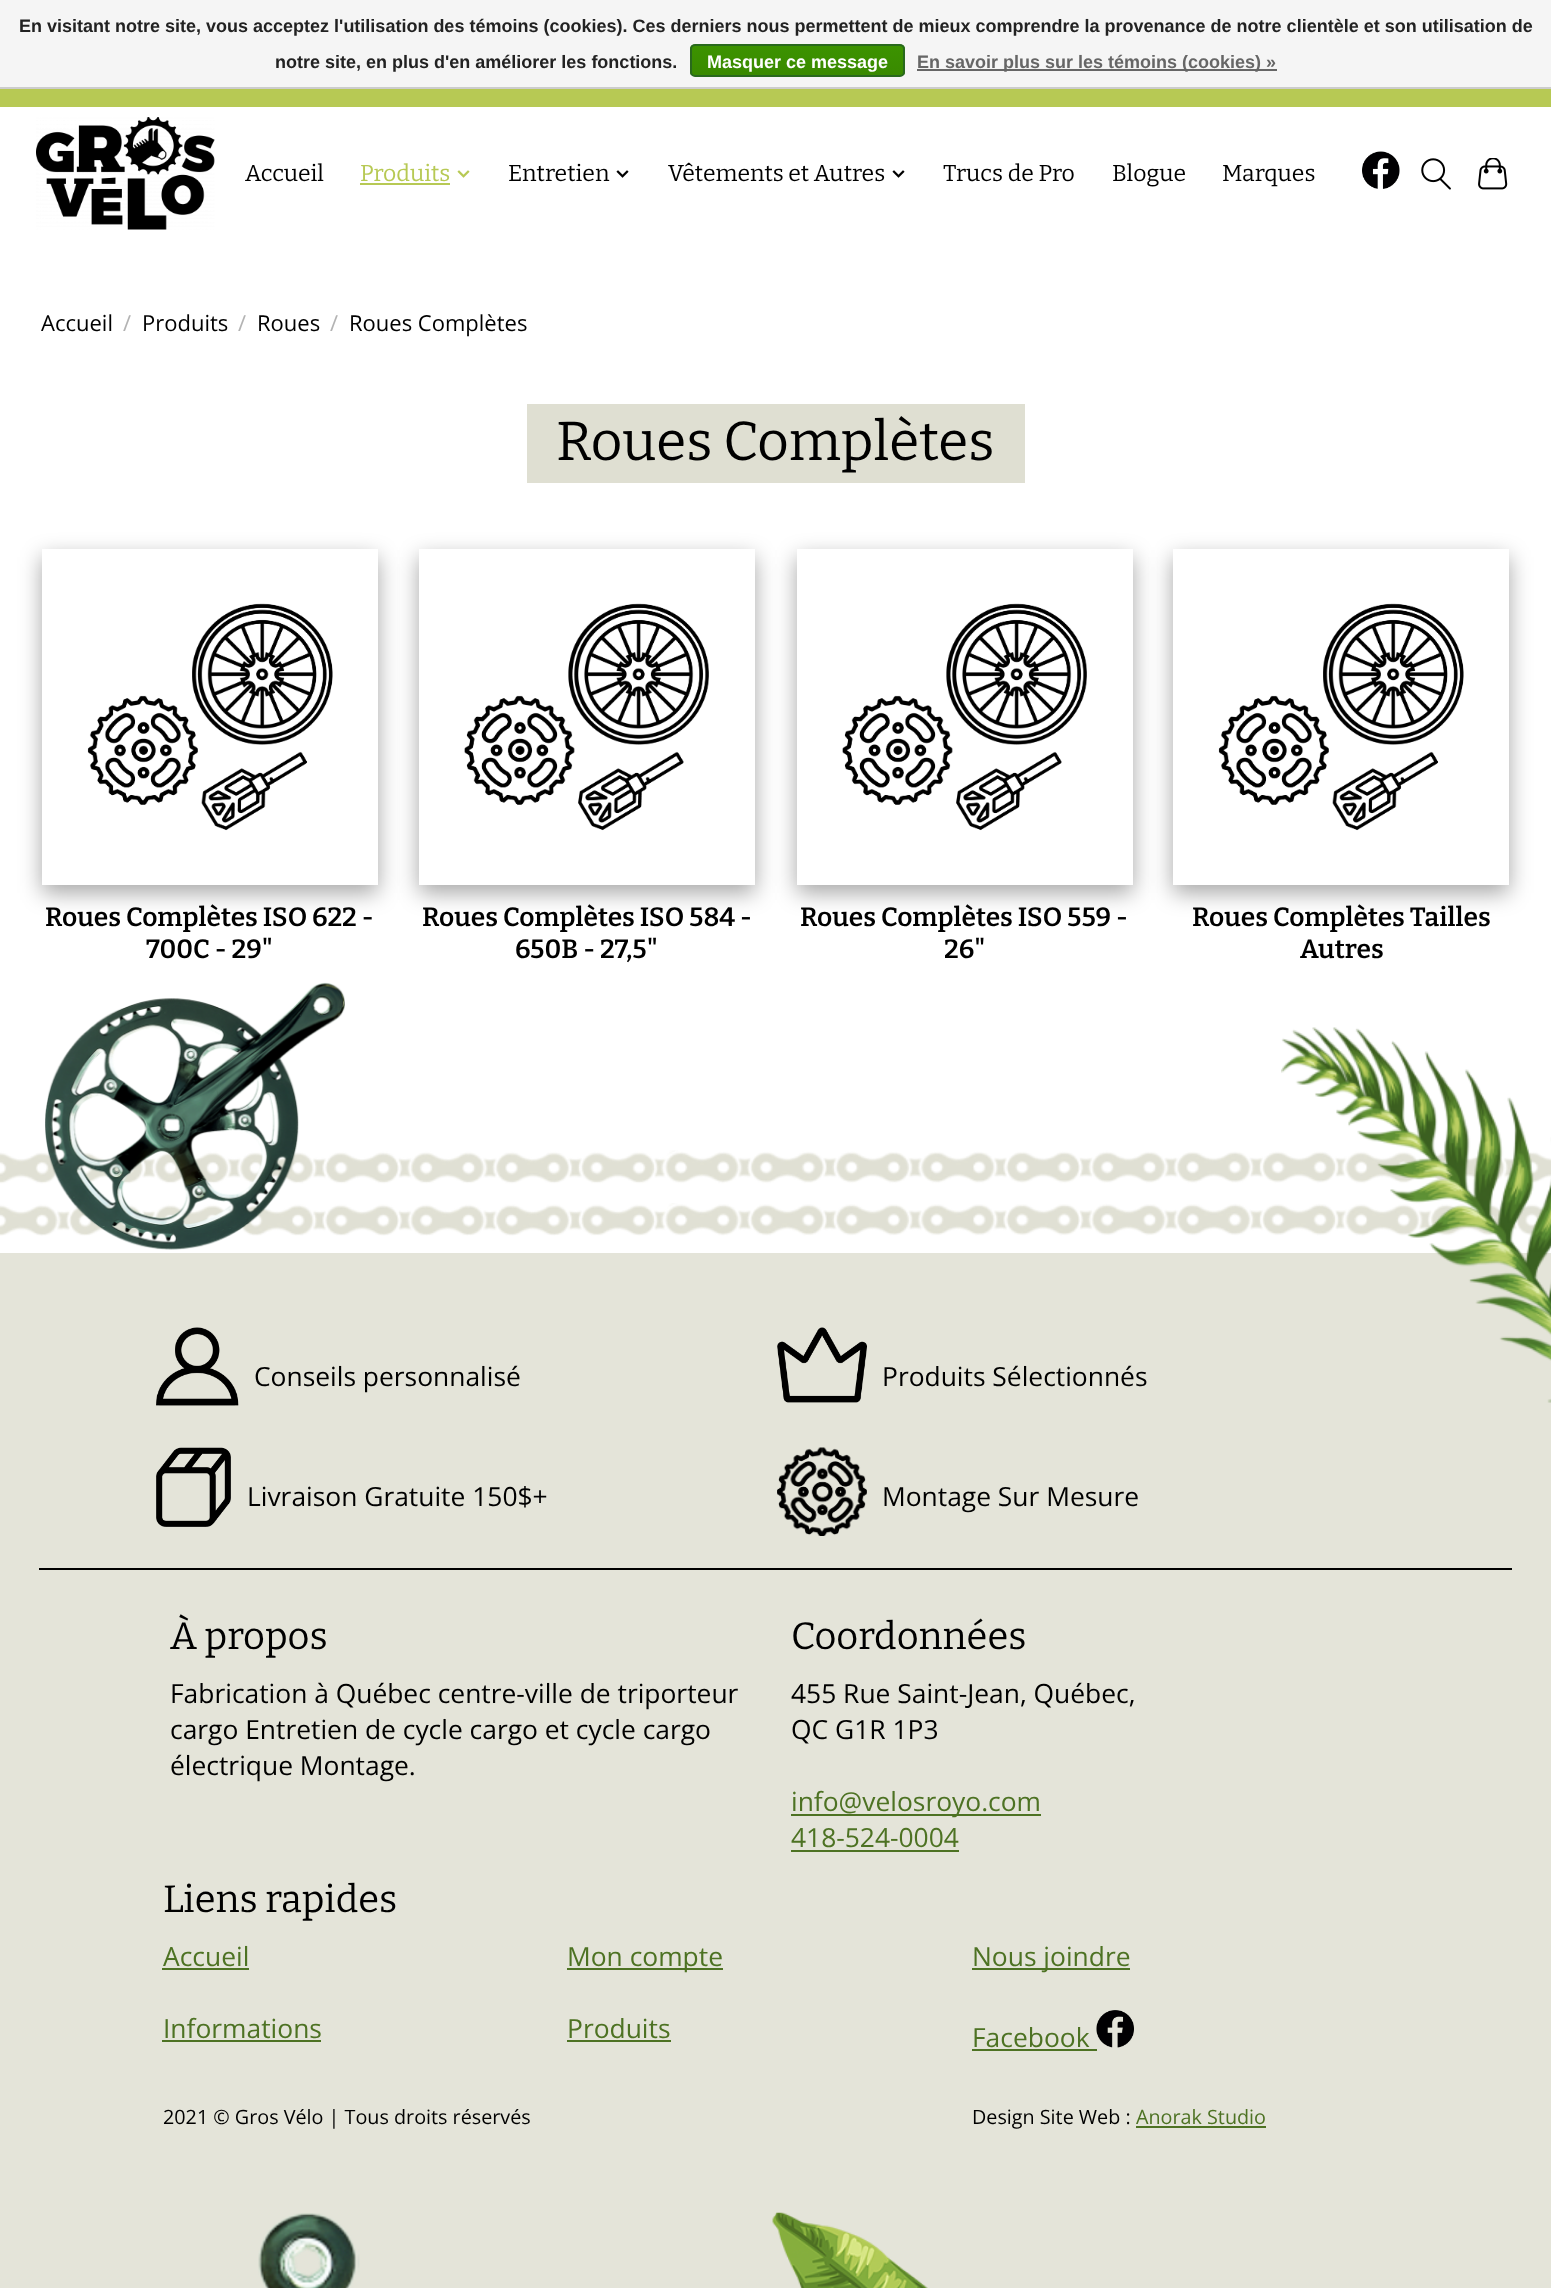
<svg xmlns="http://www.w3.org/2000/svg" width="1551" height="2288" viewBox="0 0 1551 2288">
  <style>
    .t1 { font: bold 18px Liberation Sans; fill: #222; }
    .t2 { font: bold 18px Liberation Sans; fill: #fff; }
    .t3 { font: bold 18px Liberation Sans; fill: #666; }
    .t4 { font: 23px Bitter; fill: #000; }
    .t5 { font: 23px Bitter; fill: #b7c954; }
    .t6 { font: 22px Open Sans; fill: #000; }
    .t7 { font: 22px Open Sans; fill: #b3b3b3; }
    .t8 { font: 54.75px Bitter; fill: #000; }
    .t9 { font: 600 26.4px Bitter; fill: #000; }
    .t10 { font: 26.4px Open Sans; fill: #000; }
    .t11 { font: 38px Bitter; fill: #000; }
    .t12 { font: 26.4px Open Sans; fill: #4d7223; }
    .t13 { font: 19.75px Open Sans; fill: #000; }
    .t14 { font: 19.75px Open Sans; fill: #4d7223; }
  </style>
  <defs>
    <clipPath id="clip1"><rect x="690" y="44" width="215" height="33" rx="5"/></clipPath>
    <linearGradient id="g1" gradientUnits="userSpaceOnUse" x1="797" y1="45" x2="797" y2="75"><stop offset="0" stop-color="#3c9300"/><stop offset="1" stop-color="#398a00"/></linearGradient>
    <clipPath id="clip2"><path d="M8 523H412V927H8ZM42 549H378V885H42Z" clip-rule="evenodd"/></clipPath>
    <clipPath id="clip3"><path d="M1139 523H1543V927H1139ZM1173 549H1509V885H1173Z" clip-rule="evenodd"/></clipPath>
  </defs>
  <rect width="100%" height="100%" fill="#fff"/>
  <rect x="0" y="0" width="1551" height="87" fill="#f5f5f5"/>
  <rect x="0" y="87" width="1551" height="2" fill="#ccc"/>
  <text x="19" y="32" class="t1">En visitant notre site, vous acceptez l'utilisation des témoins (cookies). Ces derniers nous permettent de mieux comprendre la provenance de notre clientèle et son utilisation de</text>
  <text x="275" y="68" class="t1">notre site, en plus d'en améliorer les fonctions.</text>
  <g clip-path="url(#clip1)">
    <rect x="690" y="45" width="215" height="30" fill="url(#g1)"/>
  </g>
  <rect x="691" y="45" width="213" height="31" rx="4" fill="none" stroke="#29691d" stroke-width="2"/>
  <text x="707" y="68" class="t2">Masquer ce message</text>
  <rect x="917" y="69" width="360" height="2" fill="#666"/>
  <text x="917" y="68" class="t3">En savoir plus sur les témoins (cookies) »</text>
  <rect x="0" y="89" width="1551" height="18" fill="#b7c954"/>
  <image x="36" y="117" width="179" height="113" href="images/1.png"/>
  <text x="245" y="181" class="t4">Accueil</text>
  <text x="360" y="181" class="t5">Produits</text>
  <rect x="360" y="183" width="90" height="2" fill="#b7c954"/>
  <image x="457" y="170" width="13" height="8" href="images/2.png"/>
  <text x="508" y="181" class="t4">Entretien</text>
  <image x="616" y="170" width="13" height="8" href="images/3.png"/>
  <text x="668" y="181" class="t4">Vêtements et Autres</text>
  <image x="892" y="170" width="13" height="8" href="images/3.png"/>
  <text x="943" y="181" class="t4">Trucs de Pro</text>
  <text x="1112" y="181" class="t4">Blogue</text>
  <text x="1222" y="181" class="t4">Marques</text>
  <image x="1362" y="151" width="38" height="38" href="images/4.png"/>
  <image x="1421" y="158" width="30" height="32" href="images/5.png"/>
  <image x="1478" y="158" width="30" height="32" href="images/6.png"/>
  <text x="41" y="331" class="t6">Accueil</text>
  <text x="123" y="331" class="t7">/</text>
  <text x="142" y="331" class="t6">Produits</text>
  <text x="238" y="331" class="t7">/</text>
  <text x="257" y="331" class="t6">Roues</text>
  <text x="330" y="331" class="t7">/</text>
  <text x="349" y="331" class="t6">Roues Complètes</text>
  <rect x="527" y="404" width="498" height="79" fill="#dfdfd2"/>
  <text x="556" y="460" class="t8">Roues Complètes</text>
  <g clip-path="url(#clip2)">
    <rect x="42" y="557" width="336" height="336" fill="#00000059" filter="blur(11px)"/>
  </g>
  <image x="87" y="603" width="246" height="228" href="images/7.png"/>
  <text x="45" y="926" class="t9">Roues Complètes ISO 622 -</text>
  <text x="146" y="958" class="t9">700C - 29"</text>
  <rect x="419" y="557" width="336" height="336" fill="#00000059" filter="blur(11px)"/>
  <rect x="419" y="549" width="336" height="336" fill="#fff"/>
  <image x="464" y="603" width="245" height="228" href="images/8.png"/>
  <text x="422" y="926" class="t9">Roues Complètes ISO 584 -</text>
  <text x="515" y="958" class="t9">650B - 27,5"</text>
  <rect x="797" y="557" width="336" height="336" fill="#00000059" filter="blur(11px)"/>
  <rect x="797" y="549" width="336" height="336" fill="#fff"/>
  <image x="842" y="603" width="245" height="228" href="images/9.png"/>
  <text x="800" y="926" class="t9">Roues Complètes ISO 559 -</text>
  <text x="944" y="958" class="t9">26"</text>
  <g clip-path="url(#clip3)">
    <rect x="1173" y="557" width="336" height="336" fill="#00000059" filter="blur(11px)"/>
  </g>
  <image x="1218" y="603" width="246" height="228" href="images/10.png"/>
  <text x="1192" y="926" class="t9">Roues Complètes Tailles</text>
  <text x="1300" y="958" class="t9">Autres</text>
  <image x="0" y="1150" width="1551" height="34" href="images/13.png"/>
  <image x="0" y="1203" width="1545" height="33" href="images/14.png"/>
  <image x="45" y="982" width="300" height="268" href="images/11.png"/>
  <rect x="0" y="1253" width="1551" height="1035" fill="#e4e4d9"/>
  <image x="1281" y="1027" width="270" height="376" href="images/12.png"/>
  <image x="156" y="1327" width="83" height="79" href="images/15.png"/>
  <text x="254" y="1386" class="t10">Conseils personnalisé</text>
  <image x="777" y="1327" width="90" height="76" href="images/16.png"/>
  <text x="882" y="1386" class="t10">Produits Sélectionnés</text>
  <image x="156" y="1447" width="75" height="80" href="images/17.png"/>
  <text x="247" y="1506" class="t10">Livraison Gratuite 150$+</text>
  <image x="777" y="1447" width="90" height="89" href="images/18.png"/>
  <text x="882" y="1506" class="t10">Montage Sur Mesure</text>
  <rect x="39" y="1568" width="1473" height="2" fill="#000"/>
  <text x="170" y="1649" class="t11">À propos</text>
  <text x="170" y="1703" class="t10">Fabrication à Québec centre-ville de triporteur</text>
  <text x="170" y="1739" class="t10">cargo Entretien de cycle cargo et cycle cargo</text>
  <text x="170" y="1775" class="t10">électrique Montage.</text>
  <text x="791" y="1649" class="t11">Coordonnées</text>
  <text x="791" y="1703" class="t10">455 Rue Saint-Jean, Québec,</text>
  <text x="791" y="1739" class="t10">QC G1R 1P3</text>
  <rect x="791" y="1814" width="250" height="2" fill="#4d7223"/>
  <text x="791" y="1811" class="t12">info@velosroyo.com</text>
  <text x="791" y="1847" class="t12">418-524-0004</text>
  <rect x="791" y="1850" width="168" height="2" fill="#4d7223"/>
  <text x="163" y="1912" class="t11">Liens rapides</text>
  <text x="163" y="1966" class="t12">Accueil</text>
  <rect x="162" y="1968" width="87" height="2" fill="#4d7223"/>
  <text x="163" y="2038" class="t12">Informations</text>
  <rect x="162" y="2040" width="159" height="2" fill="#4d7223"/>
  <rect x="567" y="1968" width="156" height="2" fill="#4d7223"/>
  <text x="567" y="1966" class="t12">Mon compte</text>
  <text x="567" y="2038" class="t12">Produits</text>
  <rect x="567" y="2040" width="104" height="2" fill="#4d7223"/>
  <rect x="972" y="1968" width="158" height="2" fill="#4d7223"/>
  <text x="972" y="1966" class="t12">Nous joindre</text>
  <text x="972" y="2047" class="t12">Facebook</text>
  <rect x="972" y="2049" width="125" height="2" fill="#4d7223"/>
  <image x="1096" y="2010" width="38" height="38" href="images/19.png"/>
  <text x="163" y="2124" class="t13">2021 © Gros Vélo | Tous droits réservés</text>
  <text x="972" y="2124" class="t13">Design Site Web :</text>
  <text x="1136" y="2124" class="t14">Anorak Studio</text>
  <rect x="1136" y="2126" width="130" height="2" fill="#4d7223"/>
  <image x="258" y="2212" width="670" height="76" href="images/20.png"/>
</svg>
